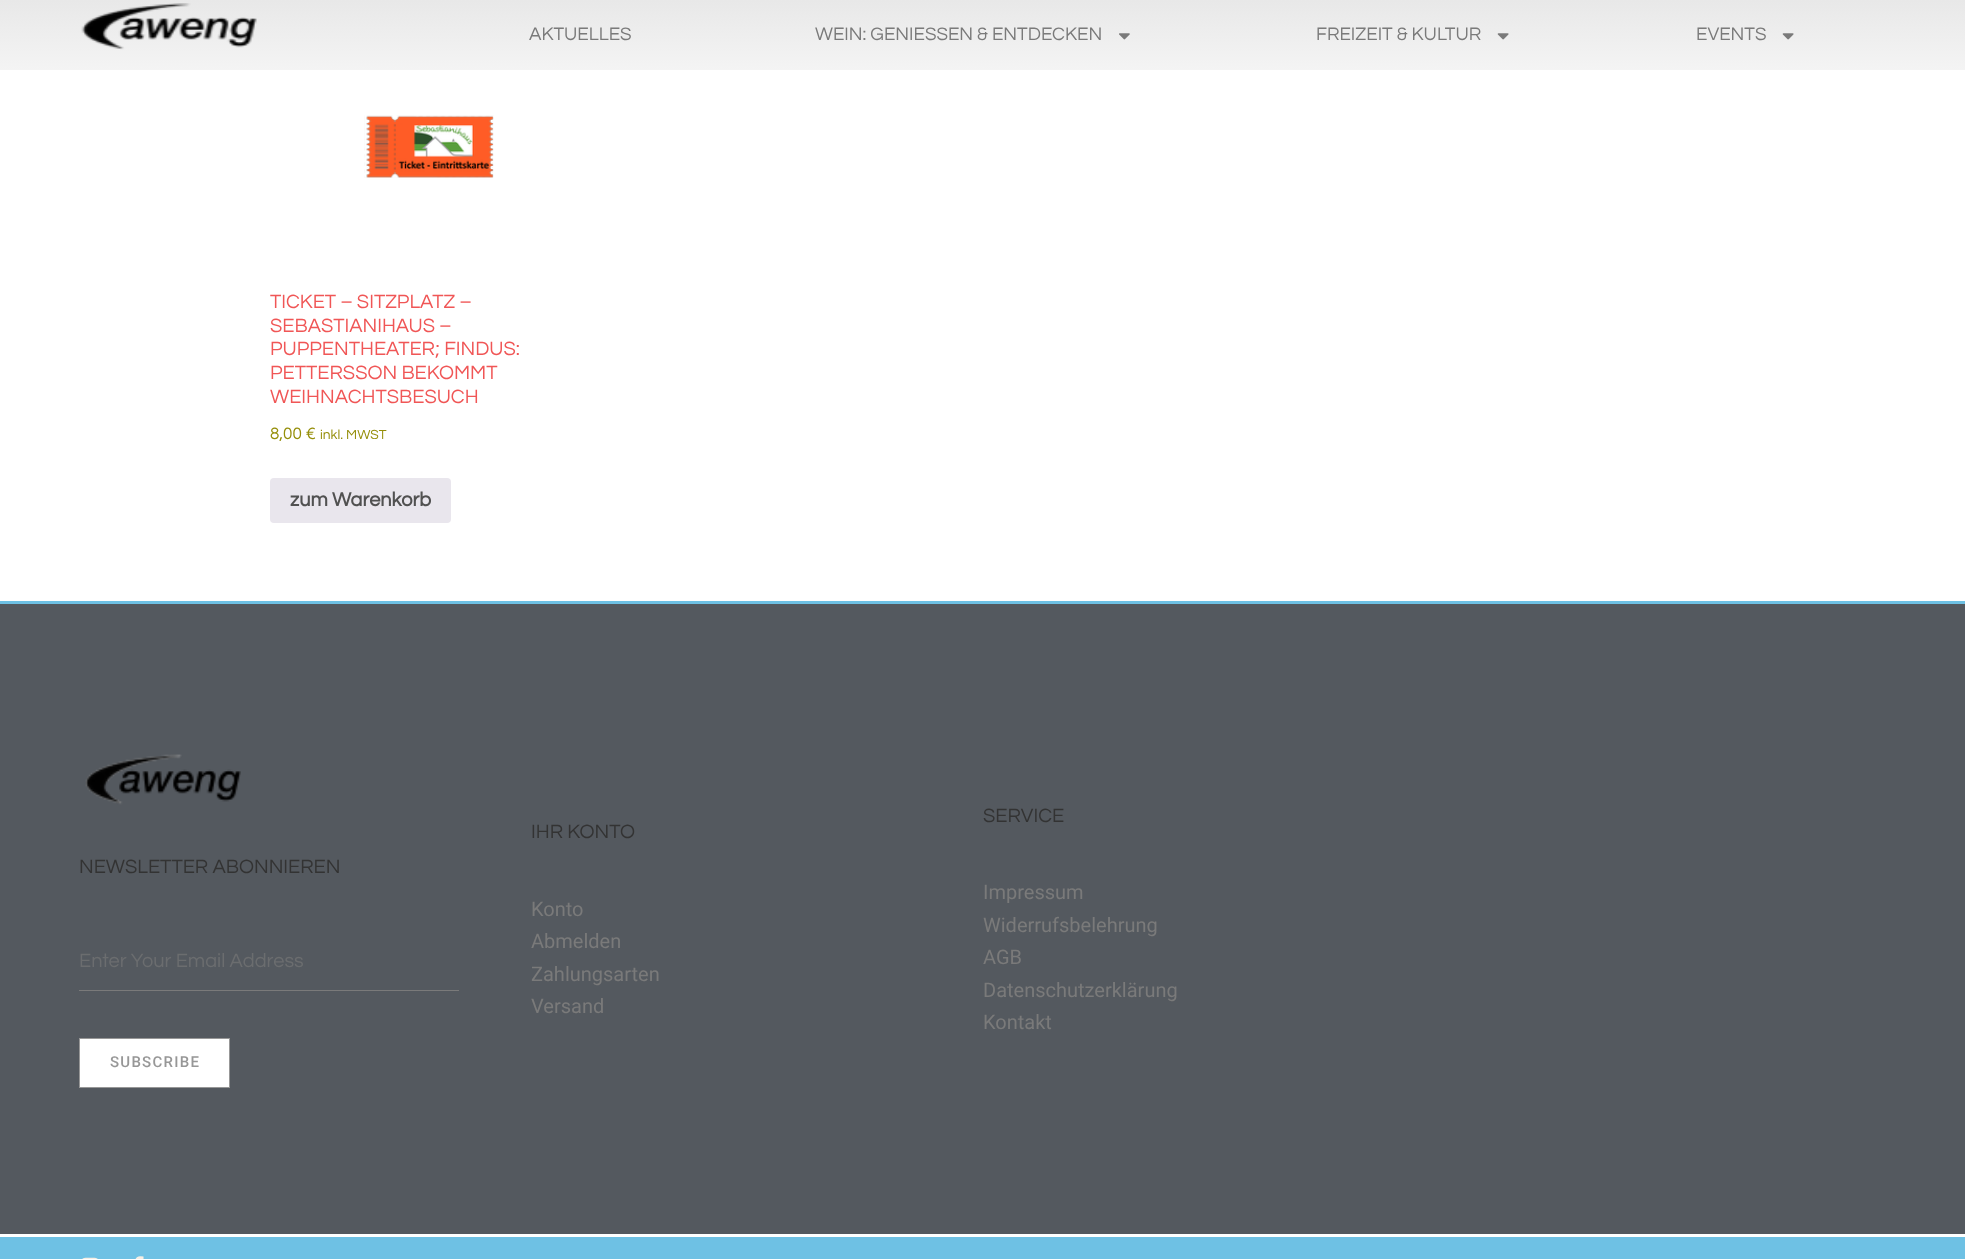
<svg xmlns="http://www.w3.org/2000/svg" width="1965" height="1259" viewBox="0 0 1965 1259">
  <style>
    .t1 { font: 18.75px Questrial; fill: #7a7a7a; }
    .t2 { font: 20px Questrial; fill: #f05656; }
    .t3 { font: 17px Questrial; fill: #958e09; }
    .t4 { font: 13.75px Questrial; fill: #958e09; }
    .t5 { font: bold 20px Questrial; fill: #515151; }
    .t6 { font: 20px Questrial; fill: #333; }
    .t7 { font: 20px Questrial; fill: #6b6d6f; }
    .t8 { font: 500 15px Roboto; letter-spacing: 1.25px; fill: #979797; }
    .t9 { font: 20px Roboto; fill: #7a7a7a; }
  </style>
  <defs>
    <linearGradient id="g1" gradientUnits="userSpaceOnUse" x1="983" y1="0" x2="983" y2="70"><stop offset="0" stop-color="#e8e8e8"/><stop offset="1" stop-color="#f4f4f4"/></linearGradient>
  </defs>
  <rect width="100%" height="100%" fill="#fff"/>
  <rect x="0" y="0" width="1965" height="70" fill="url(#g1)"/>
  <image x="81" y="3" width="176" height="47" href="images/1.png"/>
  <text x="529" y="40" class="t1">AKTUELLES</text>
  <text x="815" y="40" class="t1">WEIN: GENIESSEN &amp; ENTDECKEN</text>
  <image x="1119" y="33" width="11" height="7" href="images/2.png"/>
  <text x="1316" y="40" class="t1">FREIZEIT &amp; KULTUR</text>
  <image x="1497" y="33" width="12" height="7" href="images/3.png"/>
  <text x="1696" y="40" class="t1">EVENTS</text>
  <image x="1782" y="33" width="12" height="7" href="images/3.png"/>
  <image x="364" y="115" width="130" height="63" href="images/4.png"/>
  <text x="270" y="308" class="t2">TICKET – SITZPLATZ –</text>
  <text x="270" y="332" class="t2">SEBASTIANIHAUS –</text>
  <text x="270" y="355" class="t2">PUPPENTHEATER; FINDUS:</text>
  <text x="270" y="379" class="t2">PETTERSSON BEKOMMT</text>
  <text x="270" y="403" class="t2">WEIHNACHTSBESUCH</text>
  <text x="270" y="439" class="t3">8,00 €</text>
  <text x="320" y="439" class="t4">inkl. MWST</text>
  <rect x="270" y="478" width="181" height="45" rx="4" fill="#e9e6ed"/>
  <text x="290" y="506" class="t5">zum Warenkorb</text>
  <rect x="0" y="604" width="1965" height="630" fill="#54595f"/>
  <rect x="0" y="601" width="1965" height="3" fill="#6ec1e4"/>
  <image x="85" y="754" width="156" height="51" href="images/5.png"/>
  <text x="79" y="873" class="t6">NEWSLETTER ABONNIEREN</text>
  <rect x="79" y="990" width="380" height="1" fill="#7a7a7a"/>
  <text x="79" y="967" class="t7">Enter Your Email Address</text>
  <rect x="79.5" y="1038.5" width="150" height="49" fill="#fff" stroke="#979797"/>
  <text x="110" y="1067" class="t8">SUBSCRIBE</text>
  <text x="531" y="838" class="t6">IHR KONTO</text>
  <text x="531" y="916" class="t9">Konto</text>
  <text x="531" y="948" class="t9">Abmelden</text>
  <text x="531" y="981" class="t9">Zahlungsarten</text>
  <text x="531" y="1013" class="t9">Versand</text>
  <text x="983" y="822" class="t6">SERVICE</text>
  <text x="983" y="899" class="t9">Impressum</text>
  <text x="983" y="932" class="t9">Widerrufsbelehrung</text>
  <text x="983" y="964" class="t9">AGB</text>
  <text x="983" y="997" class="t9">Datenschutzerklärung</text>
  <text x="983" y="1029" class="t9">Kontakt</text>
  <rect x="0" y="1237" width="1965" height="22" fill="#6ec1e4"/>
  <image x="82" y="1257" width="16" height="2" href="images/6.png"/>
  <image x="135" y="1256" width="9" height="3" href="images/7.png"/>
</svg>
